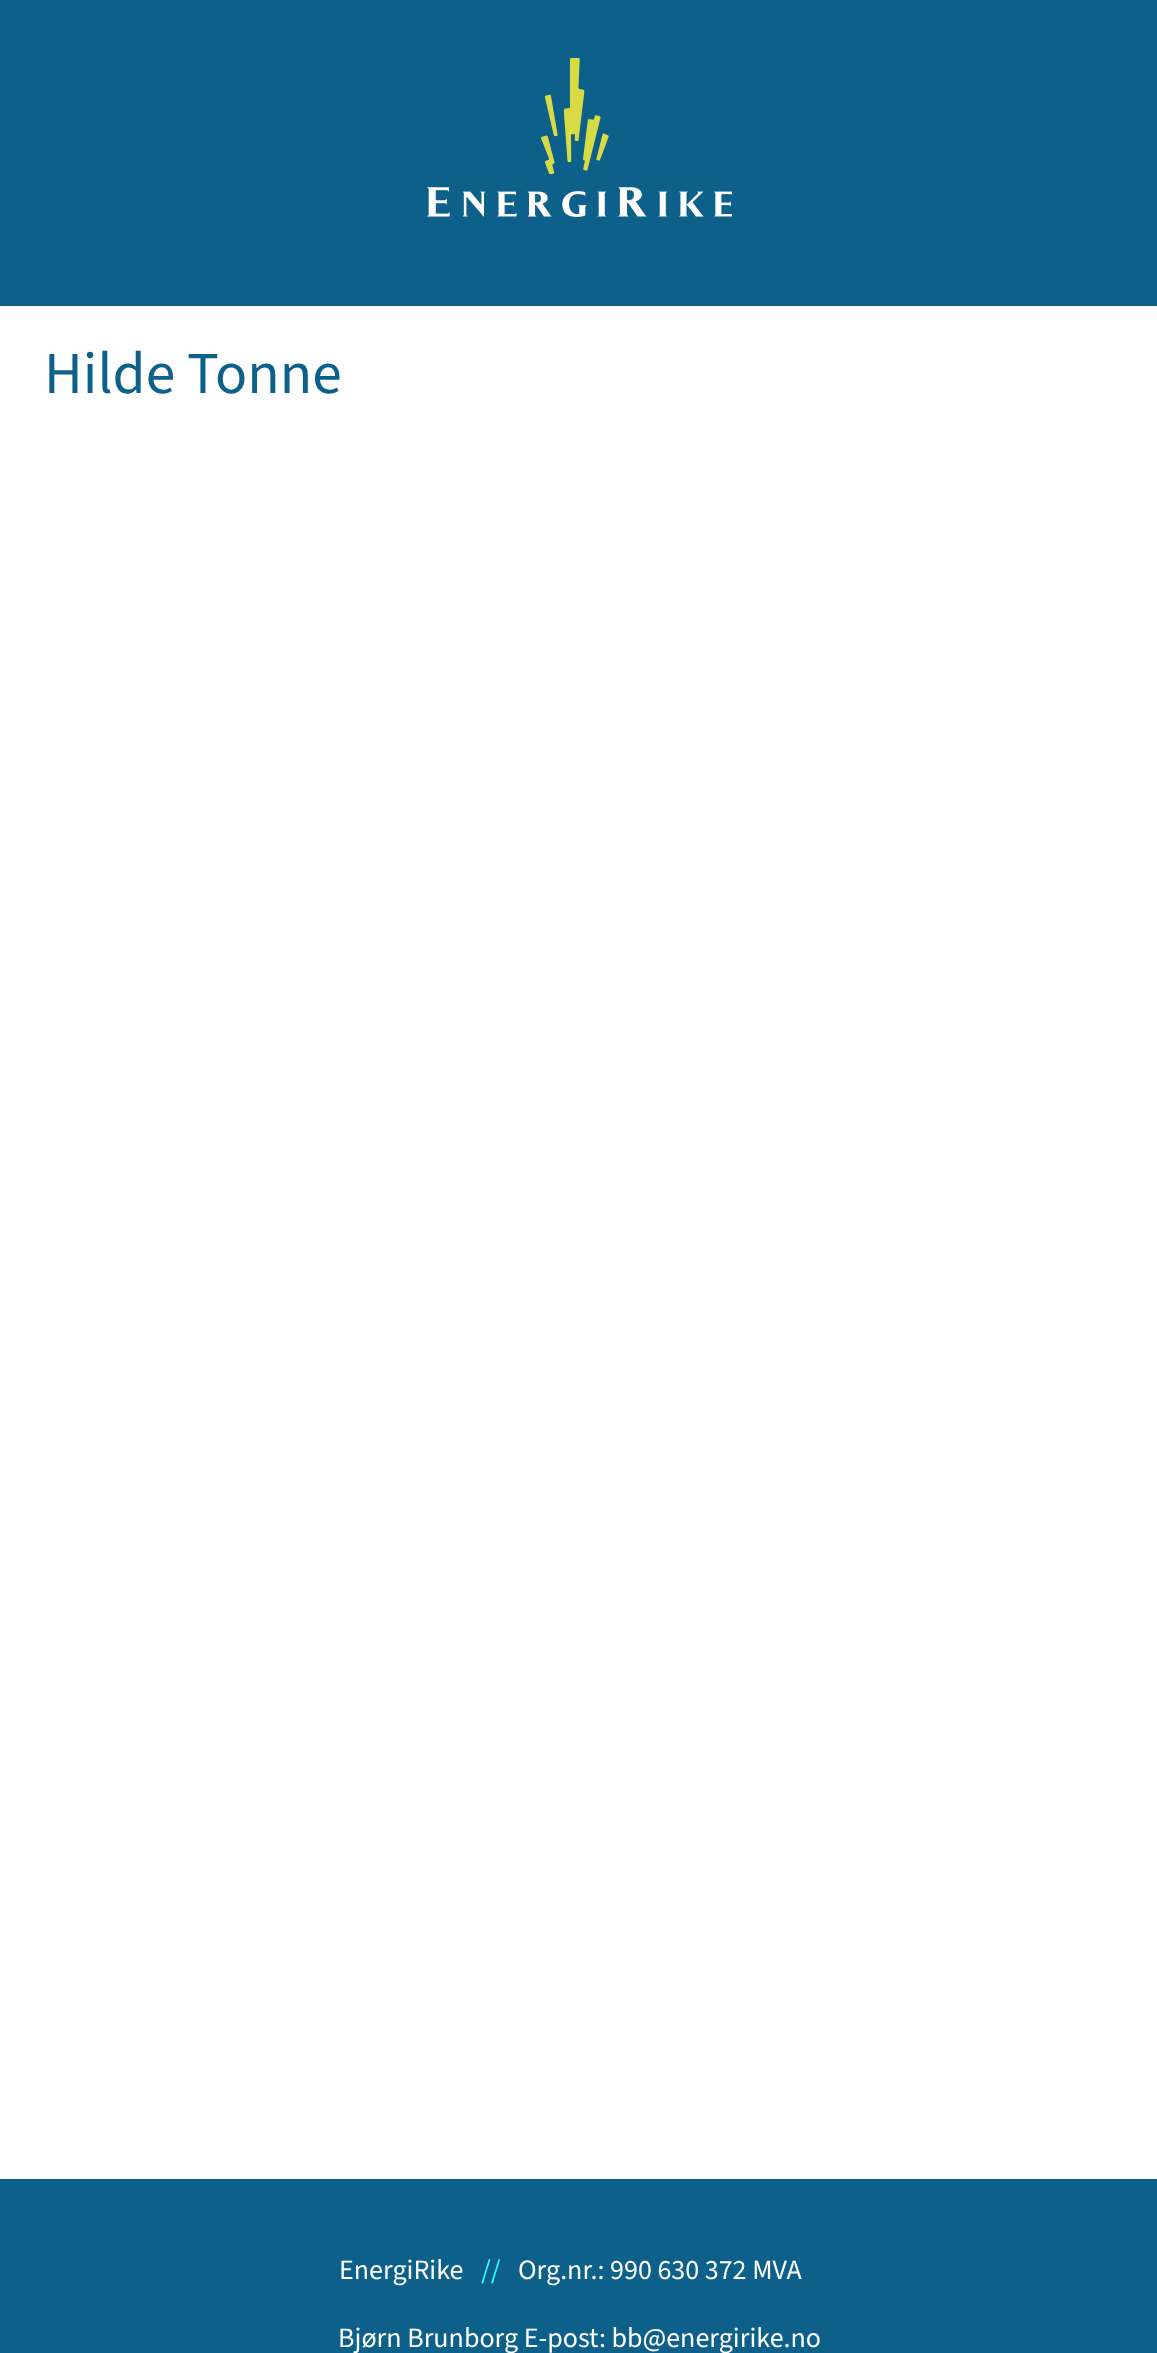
<svg xmlns="http://www.w3.org/2000/svg" width="1157" height="2353" viewBox="0 0 1157 2353">
  <style>
    .t1 { font: 59.5px 'Source Sans 3'; fill: #0c608a; }
    .t2 { font: 28px 'Source Sans 3'; fill: #fff; }
    .t3 { font: 28px 'Source Sans 3'; fill: #2dfffe; }
  </style>
  <rect width="100%" height="100%" fill="#fff"/>
  <rect x="0" y="0" width="1157" height="306" fill="#0c608a"/>
  <image x="427" y="58" width="305" height="159" href="images/1.png"/>
  <text x="44" y="393" class="t1">Hilde Tonne</text>
  <rect x="0" y="2179" width="1157" height="174" fill="#0c608a"/>
  <text x="339" y="2279" class="t2">EnergiRike</text>
  <text x="481" y="2279" class="t3">//</text>
  <text x="518" y="2279" class="t2">Org.nr.: 990 630 372 MVA</text>
  <text x="338" y="2347" class="t2">Bjørn Brunborg E-post: bb@energirike.no</text>
</svg>
